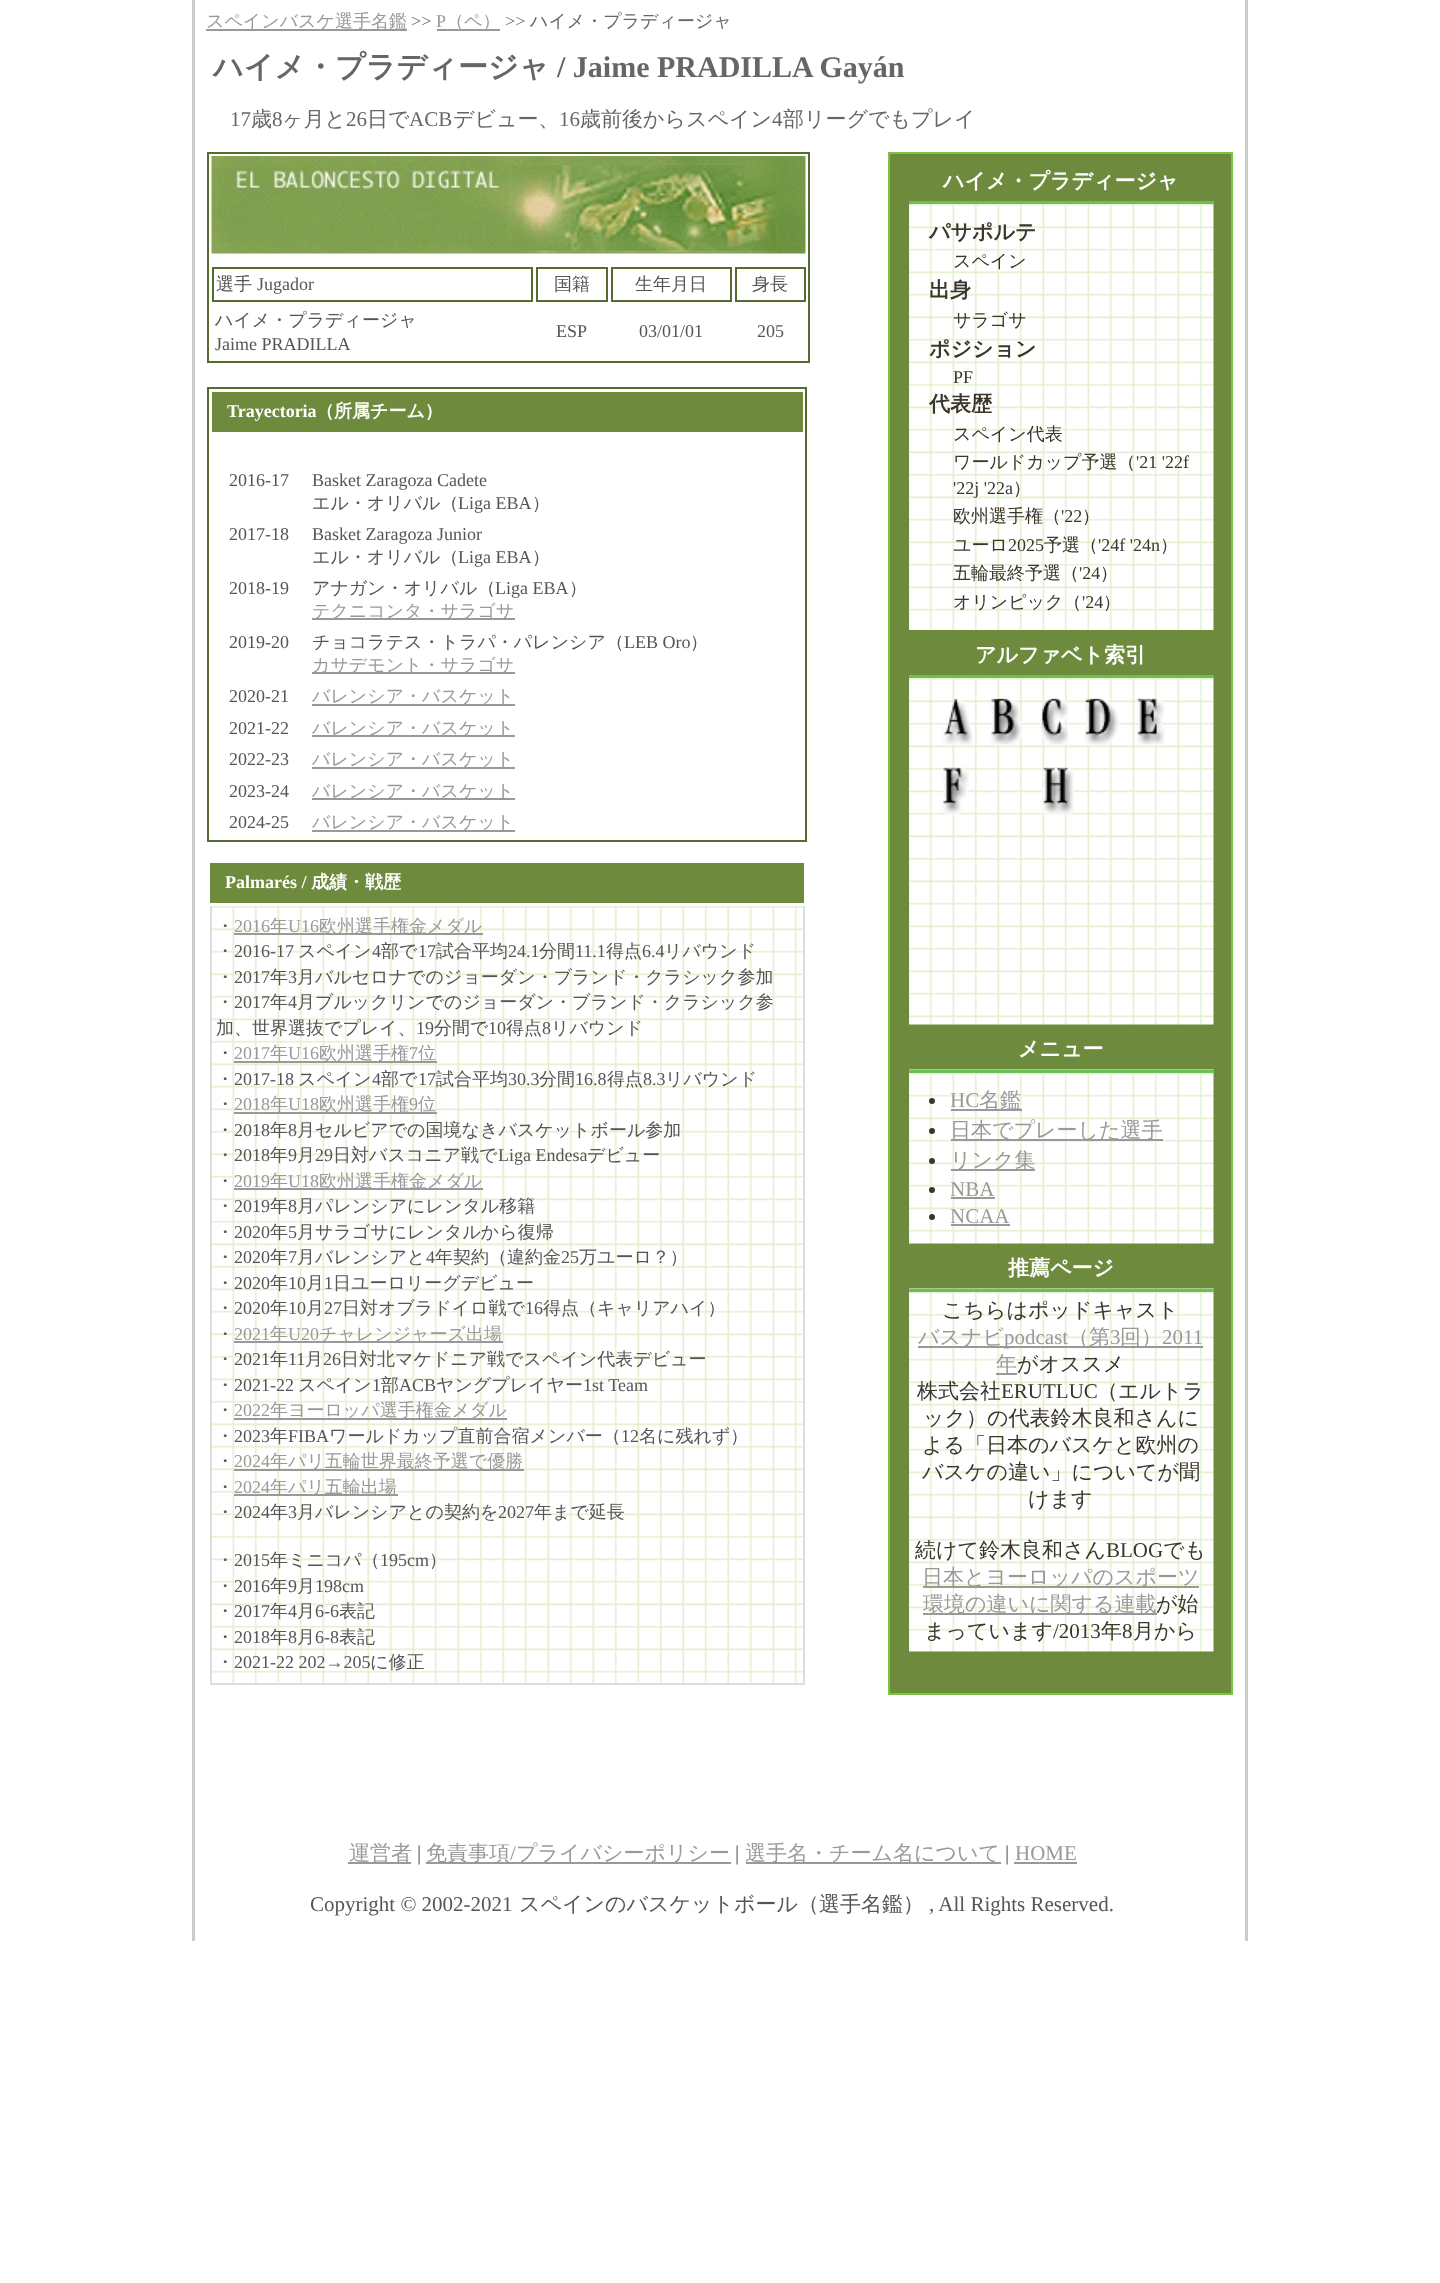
<svg xmlns="http://www.w3.org/2000/svg" width="1440" height="2283" viewBox="0 0 1440 2283">
  <style>
    .t1 { font: 500 18px WenQuanYi Zen Hei; fill: #999; }
    .t2 { font: 18px Liberation Serif; fill: #666; }
    .t3 { font: 18px Liberation Serif; fill: #999; }
    .t4 { font: 500 18px WenQuanYi Zen Hei; fill: #666; }
    .t5 { font: bold 30px WenQuanYi Zen Hei; fill: #666; }
    .t6 { font: bold 30px Liberation Serif; fill: #666; }
    .t7 { font: 21px Liberation Serif; fill: #666; }
    .t8 { font: 500 21px WenQuanYi Zen Hei; fill: #666; }
    .t9 { font: 500 18px WenQuanYi Zen Hei; fill: #555; }
    .t10 { font: 18px Liberation Serif; fill: #555; }
    .t11 { font: bold 18px Liberation Serif; fill: #fff; }
    .t12 { font: bold 18px WenQuanYi Zen Hei; fill: #fff; }
    .t13 { font: bold 21px WenQuanYi Zen Hei; fill: #fff; }
    .t14 { font: bold 21px WenQuanYi Zen Hei; fill: #3b352c; }
    .t15 { font: 500 18px WenQuanYi Zen Hei; fill: #3b352c; }
    .t16 { font: 18px Liberation Serif; fill: #3b352c; }
    .t17 { font: 21px Liberation Serif; fill: #999; }
    .t18 { font: 500 21px WenQuanYi Zen Hei; fill: #999; }
    .t19 { font: 500 21px WenQuanYi Zen Hei; fill: #3b352c; }
    .t20 { font: 21px Liberation Serif; fill: #3b352c; }
    .t21 { font: 21px Liberation Serif; fill: #555; }
    .t22 { font: 500 21px WenQuanYi Zen Hei; fill: #555; }
  </style>
  <rect width="100%" height="100%" fill="#fff"/>
  <rect x="1245" y="0" width="3" height="1941" fill="#ccc"/>
  <rect x="192" y="0" width="3" height="1941" fill="#ccc"/>
  <rect x="206" y="29" width="201" height="2" fill="#999"/>
  <text x="206" y="27" class="t1">スペインバスケ選手名鑑</text>
  <text x="411" y="27" class="t2">&gt;&gt;</text>
  <text x="436" y="27" class="t3">P</text>
  <rect x="437" y="29" width="63" height="2" fill="#999"/>
  <text x="446" y="27" class="t1">（ペ）</text>
  <text x="505" y="27" class="t2">&gt;&gt;</text>
  <text x="530" y="27" class="t4">ハイメ・プラディージャ</text>
  <text x="213" y="77" class="t5">ハイメ・プラディージャ</text>
  <text x="557" y="77" class="t6">/ Jaime PRADILLA Gayán</text>
  <text x="230" y="126" class="t7">17</text>
  <text x="251" y="126" class="t8">歳</text>
  <text x="272" y="126" class="t7">8</text>
  <text x="282" y="126" class="t8">ヶ月と</text>
  <text x="346" y="126" class="t7">26</text>
  <text x="367" y="126" class="t8">日で</text>
  <text x="409" y="126" class="t7">ACB</text>
  <text x="453" y="126" class="t8">デビュー、</text>
  <text x="559" y="126" class="t7">16</text>
  <text x="580" y="126" class="t8">歳前後からスペイン</text>
  <text x="772" y="126" class="t7">4</text>
  <text x="783" y="126" class="t8">部リーグでもプレイ</text>
  <rect x="208" y="153" width="601" height="209" fill="none" stroke="#556b2f" stroke-width="2"/>
  <image x="211" y="156" width="595" height="98" href="images/1.png"/>
  <rect x="213" y="268" width="319" height="33" fill="none" stroke="#556b2f" stroke-width="2"/>
  <text x="216" y="290" class="t9">選手</text>
  <text x="257" y="290" class="t10">Jugador</text>
  <rect x="537" y="268" width="70" height="33" fill="none" stroke="#556b2f" stroke-width="2"/>
  <text x="554" y="290" class="t9">国籍</text>
  <rect x="612" y="268" width="119" height="33" fill="none" stroke="#556b2f" stroke-width="2"/>
  <text x="635" y="290" class="t9">生年月日</text>
  <rect x="736" y="268" width="69" height="33" fill="none" stroke="#556b2f" stroke-width="2"/>
  <text x="752" y="290" class="t9">身長</text>
  <text x="215" y="326" class="t9">ハイメ・プラディージャ</text>
  <text x="215" y="350" class="t10">Jaime PRADILLA</text>
  <text x="556" y="337" class="t10">ESP</text>
  <text x="639" y="337" class="t10">03/01/01</text>
  <text x="757" y="337" class="t10">205</text>
  <rect x="208" y="388" width="598" height="453" fill="none" stroke="#556b2f" stroke-width="2"/>
  <rect x="212" y="392" width="591" height="40" fill="#6e8b3d"/>
  <text x="227" y="417" class="t11">Trayectoria</text>
  <text x="316" y="417" class="t12">（所属チーム）</text>
  <text x="229" y="486" class="t10">2016-17</text>
  <text x="312" y="486" class="t10">Basket Zaragoza Cadete</text>
  <text x="312" y="509" class="t9">エル・オリバル（</text>
  <text x="458" y="509" class="t10">Liga EBA</text>
  <text x="532" y="509" class="t9">）</text>
  <text x="229" y="540" class="t10">2017-18</text>
  <text x="312" y="540" class="t10">Basket Zaragoza Junior</text>
  <text x="312" y="563" class="t9">エル・オリバル（</text>
  <text x="458" y="563" class="t10">Liga EBA</text>
  <text x="532" y="563" class="t9">）</text>
  <text x="229" y="594" class="t10">2018-19</text>
  <text x="312" y="594" class="t9">アナガン・オリバル（</text>
  <text x="495" y="594" class="t10">Liga EBA</text>
  <text x="569" y="594" class="t9">）</text>
  <rect x="312" y="618" width="203" height="2" fill="#999"/>
  <text x="312" y="617" class="t1">テクニコンタ・サラゴサ</text>
  <text x="229" y="648" class="t10">2019-20</text>
  <text x="312" y="648" class="t9">チョコラテス・トラパ・パレンシア（</text>
  <text x="624" y="648" class="t10">LEB Oro</text>
  <text x="690" y="648" class="t9">）</text>
  <rect x="312" y="672" width="203" height="2" fill="#999"/>
  <text x="312" y="671" class="t1">カサデモント・サラゴサ</text>
  <text x="229" y="702" class="t10">2020-21</text>
  <rect x="312" y="704" width="203" height="2" fill="#999"/>
  <text x="312" y="702" class="t1">バレンシア・バスケット</text>
  <text x="229" y="734" class="t10">2021-22</text>
  <rect x="312" y="735" width="203" height="2" fill="#999"/>
  <text x="312" y="734" class="t1">バレンシア・バスケット</text>
  <text x="229" y="765" class="t10">2022-23</text>
  <rect x="312" y="767" width="203" height="2" fill="#999"/>
  <text x="312" y="765" class="t1">バレンシア・バスケット</text>
  <text x="229" y="797" class="t10">2023-24</text>
  <rect x="312" y="798" width="203" height="2" fill="#999"/>
  <text x="312" y="797" class="t1">バレンシア・バスケット</text>
  <text x="229" y="828" class="t10">2024-25</text>
  <rect x="312" y="830" width="203" height="2" fill="#999"/>
  <text x="312" y="828" class="t1">バレンシア・バスケット</text>
  <rect x="210" y="863" width="594" height="40" fill="#6e8b3d"/>
  <text x="225" y="888" class="t11">Palmarés /</text>
  <text x="311" y="888" class="t12">成績・戦歴</text>
  <image x="212" y="906" width="591" height="777" href="images/2.png"/>
  <rect x="803" y="906" width="2" height="779" fill="#ddd"/>
  <rect x="210" y="1683" width="594" height="2" fill="#ddd"/>
  <rect x="210" y="906" width="2" height="779" fill="#ddd"/>
  <text x="216" y="932" class="t9">・</text>
  <text x="234" y="932" class="t3">2016</text>
  <rect x="234" y="933" width="249" height="2" fill="#999"/>
  <text x="270" y="932" class="t1">年</text>
  <text x="288" y="932" class="t3">U16</text>
  <text x="319" y="932" class="t1">欧州選手権金メダル</text>
  <text x="216" y="957" class="t9">・</text>
  <text x="234" y="957" class="t10">2016-17</text>
  <text x="298" y="957" class="t9">スペイン</text>
  <text x="372" y="957" class="t10">4</text>
  <text x="381" y="957" class="t9">部で</text>
  <text x="418" y="957" class="t10">17</text>
  <text x="436" y="957" class="t9">試合平均</text>
  <text x="508" y="957" class="t10">24.1</text>
  <text x="539" y="957" class="t9">分間</text>
  <text x="575" y="957" class="t10">11.1</text>
  <text x="606" y="957" class="t9">得点</text>
  <text x="642" y="957" class="t10">6.4</text>
  <text x="664" y="957" class="t9">リバウンド</text>
  <text x="216" y="983" class="t9">・</text>
  <text x="234" y="983" class="t10">2017</text>
  <text x="270" y="983" class="t9">年</text>
  <text x="288" y="983" class="t10">3</text>
  <text x="297" y="983" class="t9">月バルセロナでのジョーダン・ブランド・クラシック参加</text>
  <text x="216" y="1008" class="t9">・</text>
  <text x="234" y="1008" class="t10">2017</text>
  <text x="270" y="1008" class="t9">年</text>
  <text x="288" y="1008" class="t10">4</text>
  <text x="297" y="1008" class="t9">月ブルックリンでのジョーダン・ブランド・クラシック参</text>
  <text x="216" y="1034" class="t9">加、世界選抜でプレイ、</text>
  <text x="416" y="1034" class="t10">19</text>
  <text x="434" y="1034" class="t9">分間で</text>
  <text x="488" y="1034" class="t10">10</text>
  <text x="506" y="1034" class="t9">得点</text>
  <text x="542" y="1034" class="t10">8</text>
  <text x="551" y="1034" class="t9">リバウンド</text>
  <text x="216" y="1059" class="t9">・</text>
  <text x="234" y="1059" class="t3">2017</text>
  <rect x="234" y="1061" width="203" height="2" fill="#999"/>
  <text x="270" y="1059" class="t1">年</text>
  <text x="288" y="1059" class="t3">U16</text>
  <text x="319" y="1059" class="t1">欧州選手権</text>
  <text x="409" y="1059" class="t3">7</text>
  <text x="418" y="1059" class="t1">位</text>
  <text x="216" y="1085" class="t9">・</text>
  <text x="234" y="1085" class="t10">2017-18</text>
  <text x="298" y="1085" class="t9">スペイン</text>
  <text x="372" y="1085" class="t10">4</text>
  <text x="381" y="1085" class="t9">部で</text>
  <text x="418" y="1085" class="t10">17</text>
  <text x="436" y="1085" class="t9">試合平均</text>
  <text x="508" y="1085" class="t10">30.3</text>
  <text x="539" y="1085" class="t9">分間</text>
  <text x="575" y="1085" class="t10">16.8</text>
  <text x="607" y="1085" class="t9">得点</text>
  <text x="643" y="1085" class="t10">8.3</text>
  <text x="665" y="1085" class="t9">リバウンド</text>
  <text x="216" y="1110" class="t9">・</text>
  <text x="234" y="1110" class="t3">2018</text>
  <rect x="234" y="1112" width="203" height="2" fill="#999"/>
  <text x="270" y="1110" class="t1">年</text>
  <text x="288" y="1110" class="t3">U18</text>
  <text x="319" y="1110" class="t1">欧州選手権</text>
  <text x="409" y="1110" class="t3">9</text>
  <text x="418" y="1110" class="t1">位</text>
  <text x="216" y="1136" class="t9">・</text>
  <text x="234" y="1136" class="t10">2018</text>
  <text x="270" y="1136" class="t9">年</text>
  <text x="288" y="1136" class="t10">8</text>
  <text x="297" y="1136" class="t9">月セルビアでの国境なきバスケットボール参加</text>
  <text x="216" y="1161" class="t9">・</text>
  <text x="234" y="1161" class="t10">2018</text>
  <text x="270" y="1161" class="t9">年</text>
  <text x="288" y="1161" class="t10">9</text>
  <text x="297" y="1161" class="t9">月</text>
  <text x="315" y="1161" class="t10">29</text>
  <text x="333" y="1161" class="t9">日対バスコニア戦で</text>
  <text x="498" y="1161" class="t10">Liga Endesa</text>
  <text x="587" y="1161" class="t9">デビュー</text>
  <text x="216" y="1187" class="t9">・</text>
  <text x="234" y="1187" class="t3">2019</text>
  <rect x="234" y="1188" width="249" height="2" fill="#999"/>
  <text x="270" y="1187" class="t1">年</text>
  <text x="288" y="1187" class="t3">U18</text>
  <text x="319" y="1187" class="t1">欧州選手権金メダル</text>
  <text x="216" y="1212" class="t9">・</text>
  <text x="234" y="1212" class="t10">2019</text>
  <text x="270" y="1212" class="t9">年</text>
  <text x="288" y="1212" class="t10">8</text>
  <text x="297" y="1212" class="t9">月パレンシアにレンタル移籍</text>
  <text x="216" y="1238" class="t9">・</text>
  <text x="234" y="1238" class="t10">2020</text>
  <text x="270" y="1238" class="t9">年</text>
  <text x="288" y="1238" class="t10">5</text>
  <text x="297" y="1238" class="t9">月サラゴサにレンタルから復帰</text>
  <text x="216" y="1263" class="t9">・</text>
  <text x="234" y="1263" class="t10">2020</text>
  <text x="270" y="1263" class="t9">年</text>
  <text x="288" y="1263" class="t10">7</text>
  <text x="297" y="1263" class="t9">月バレンシアと</text>
  <text x="426" y="1263" class="t10">4</text>
  <text x="435" y="1263" class="t9">年契約（違約金</text>
  <text x="561" y="1263" class="t10">25</text>
  <text x="579" y="1263" class="t9">万ユーロ？）</text>
  <text x="216" y="1289" class="t9">・</text>
  <text x="234" y="1289" class="t10">2020</text>
  <text x="270" y="1289" class="t9">年</text>
  <text x="288" y="1289" class="t10">10</text>
  <text x="306" y="1289" class="t9">月</text>
  <text x="324" y="1289" class="t10">1</text>
  <text x="333" y="1289" class="t9">日ユーロリーグデビュー</text>
  <text x="216" y="1314" class="t9">・</text>
  <text x="234" y="1314" class="t10">2020</text>
  <text x="270" y="1314" class="t9">年</text>
  <text x="288" y="1314" class="t10">10</text>
  <text x="306" y="1314" class="t9">月</text>
  <text x="324" y="1314" class="t10">27</text>
  <text x="342" y="1314" class="t9">日対オブラドイロ戦で</text>
  <text x="525" y="1314" class="t10">16</text>
  <text x="543" y="1314" class="t9">得点（キャリアハイ）</text>
  <text x="216" y="1340" class="t9">・</text>
  <text x="234" y="1340" class="t3">2021</text>
  <rect x="234" y="1341" width="269" height="2" fill="#999"/>
  <text x="270" y="1340" class="t1">年</text>
  <text x="288" y="1340" class="t3">U20</text>
  <text x="319" y="1340" class="t1">チャレンジャーズ出場</text>
  <text x="216" y="1365" class="t9">・</text>
  <text x="234" y="1365" class="t10">2021</text>
  <text x="270" y="1365" class="t9">年</text>
  <text x="288" y="1365" class="t10">11</text>
  <text x="305" y="1365" class="t9">月</text>
  <text x="323" y="1365" class="t10">26</text>
  <text x="341" y="1365" class="t9">日対北マケドニア戦でスペイン代表デビュー</text>
  <text x="216" y="1391" class="t9">・</text>
  <text x="234" y="1391" class="t10">2021-22</text>
  <text x="298" y="1391" class="t9">スペイン</text>
  <text x="372" y="1391" class="t10">1</text>
  <text x="381" y="1391" class="t9">部</text>
  <text x="399" y="1391" class="t10">ACB</text>
  <text x="436" y="1391" class="t9">ヤングプレイヤー</text>
  <text x="583" y="1391" class="t10">1st Team</text>
  <text x="216" y="1416" class="t9">・</text>
  <text x="234" y="1416" class="t3">2022</text>
  <rect x="234" y="1418" width="273" height="2" fill="#999"/>
  <text x="270" y="1416" class="t1">年ヨーロッパ選手権金メダル</text>
  <text x="216" y="1442" class="t9">・</text>
  <text x="234" y="1442" class="t10">2023</text>
  <text x="270" y="1442" class="t9">年</text>
  <text x="288" y="1442" class="t10">FIBA</text>
  <text x="329" y="1442" class="t9">ワールドカップ直前合宿メンバー（</text>
  <text x="621" y="1442" class="t10">12</text>
  <text x="639" y="1442" class="t9">名に残れず）</text>
  <text x="216" y="1467" class="t9">・</text>
  <text x="234" y="1467" class="t3">2024</text>
  <rect x="234" y="1469" width="290" height="2" fill="#999"/>
  <text x="270" y="1467" class="t1">年パリ五輪世界最終予選で優勝</text>
  <text x="216" y="1493" class="t9">・</text>
  <text x="234" y="1493" class="t3">2024</text>
  <rect x="234" y="1494" width="164" height="2" fill="#999"/>
  <text x="270" y="1493" class="t1">年パリ五輪出場</text>
  <text x="216" y="1518" class="t9">・</text>
  <text x="234" y="1518" class="t10">2024</text>
  <text x="270" y="1518" class="t9">年</text>
  <text x="288" y="1518" class="t10">3</text>
  <text x="297" y="1518" class="t9">月バレンシアとの契約を</text>
  <text x="498" y="1518" class="t10">2027</text>
  <text x="534" y="1518" class="t9">年まで延長</text>
  <text x="216" y="1566" class="t9">・</text>
  <text x="234" y="1566" class="t10">2015</text>
  <text x="270" y="1566" class="t9">年ミニコパ（</text>
  <text x="380" y="1566" class="t10">195cm</text>
  <text x="429" y="1566" class="t9">）</text>
  <text x="216" y="1592" class="t9">・</text>
  <text x="234" y="1592" class="t10">2016</text>
  <text x="270" y="1592" class="t9">年</text>
  <text x="288" y="1592" class="t10">9</text>
  <text x="297" y="1592" class="t9">月</text>
  <text x="315" y="1592" class="t10">198cm</text>
  <text x="216" y="1617" class="t9">・</text>
  <text x="234" y="1617" class="t10">2017</text>
  <text x="270" y="1617" class="t9">年</text>
  <text x="288" y="1617" class="t10">4</text>
  <text x="297" y="1617" class="t9">月</text>
  <text x="315" y="1617" class="t10">6-6</text>
  <text x="339" y="1617" class="t9">表記</text>
  <text x="216" y="1643" class="t9">・</text>
  <text x="234" y="1643" class="t10">2018</text>
  <text x="270" y="1643" class="t9">年</text>
  <text x="288" y="1643" class="t10">8</text>
  <text x="297" y="1643" class="t9">月</text>
  <text x="315" y="1643" class="t10">6-8</text>
  <text x="339" y="1643" class="t9">表記</text>
  <text x="216" y="1668" class="t9">・</text>
  <text x="234" y="1668" class="t10">2021-22 202→205</text>
  <text x="370" y="1668" class="t9">に修正</text>
  <rect x="889" y="153" width="343" height="1541" fill="#6e8b3d" stroke="#7ac642" stroke-width="2"/>
  <text x="943" y="188" class="t13">ハイメ・プラディージャ</text>
  <image x="909" y="204" width="305" height="426" href="images/3.png"/>
  <rect x="909" y="201" width="305" height="3" fill="#68c150"/>
  <text x="929" y="239" class="t14">パサポルテ</text>
  <text x="953" y="267" class="t15">スペイン</text>
  <text x="929" y="297" class="t14">出身</text>
  <text x="953" y="326" class="t15">サラゴサ</text>
  <text x="929" y="356" class="t14">ポジション</text>
  <text x="953" y="383" class="t16">PF</text>
  <text x="929" y="411" class="t14">代表歴</text>
  <text x="953" y="440" class="t15">スペイン代表</text>
  <text x="953" y="468" class="t15">ワールドカップ予選（</text>
  <text x="1136" y="468" class="t16">'21 '22f</text>
  <text x="953" y="494" class="t16">'22j '22a</text>
  <text x="1013" y="494" class="t15">）</text>
  <text x="953" y="522" class="t15">欧州選手権（</text>
  <text x="1061" y="522" class="t16">'22</text>
  <text x="1082" y="522" class="t15">）</text>
  <text x="953" y="551" class="t15">ユーロ</text>
  <text x="1008" y="551" class="t16">2025</text>
  <text x="1044" y="551" class="t15">予選（</text>
  <text x="1098" y="551" class="t16">'24f '24n</text>
  <text x="1160" y="551" class="t15">）</text>
  <text x="953" y="579" class="t15">五輪最終予選（</text>
  <text x="1079" y="579" class="t16">'24</text>
  <text x="1100" y="579" class="t15">）</text>
  <text x="953" y="608" class="t15">オリンピック（</text>
  <text x="1082" y="608" class="t16">'24</text>
  <text x="1103" y="608" class="t15">）</text>
  <text x="975" y="662" class="t13">アルファベト索引</text>
  <image x="909" y="678" width="305" height="347" href="images/4.png"/>
  <rect x="909" y="675" width="305" height="3" fill="#68c150"/>
  <image x="942" y="698" width="31" height="48" href="images/5.png"/>
  <image x="990" y="698" width="32" height="48" href="images/6.png"/>
  <image x="1039" y="698" width="29" height="48" href="images/7.png"/>
  <image x="1084" y="698" width="35" height="48" href="images/8.png"/>
  <image x="1137" y="698" width="28" height="48" href="images/9.png"/>
  <image x="942" y="767" width="27" height="48" href="images/10.png"/>
  <image x="1042" y="767" width="32" height="48" href="images/11.png"/>
  <text x="1018" y="1056" class="t13">メニュー</text>
  <image x="909" y="1069" width="305" height="175" href="images/12.png"/>
  <rect x="909" y="1070" width="305" height="3" fill="#68c150"/>
  <circle cx="932" cy="1101" r="3" fill="#3b352c"/>
  <text x="950" y="1107" class="t17">HC</text>
  <rect x="951" y="1109" width="71" height="2" fill="#999"/>
  <text x="979" y="1107" class="t18">名鑑</text>
  <circle cx="932" cy="1131" r="3" fill="#3b352c"/>
  <rect x="951" y="1139" width="212" height="2" fill="#999"/>
  <text x="950" y="1137" class="t18">日本でプレーした選手</text>
  <circle cx="932" cy="1161" r="3" fill="#3b352c"/>
  <rect x="951" y="1169" width="84" height="2" fill="#999"/>
  <text x="950" y="1167" class="t18">リンク集</text>
  <circle cx="932" cy="1190" r="3" fill="#3b352c"/>
  <text x="950" y="1196" class="t17">NBA</text>
  <rect x="951" y="1197" width="44" height="2" fill="#999"/>
  <circle cx="932" cy="1217" r="3" fill="#3b352c"/>
  <text x="950" y="1223" class="t17">NCAA</text>
  <rect x="951" y="1224" width="59" height="2" fill="#999"/>
  <text x="1008" y="1275" class="t13">推薦ページ</text>
  <image x="909" y="1288" width="305" height="364" href="images/13.png"/>
  <rect x="909" y="1289" width="305" height="3" fill="#68c150"/>
  <text x="942" y="1317" class="t19">こちらはポッドキャスト</text>
  <rect x="918" y="1346" width="285" height="2" fill="#999"/>
  <text x="918" y="1344" class="t18">バスナビ</text>
  <text x="1004" y="1344" class="t17">podcast</text>
  <text x="1068" y="1344" class="t18">（第</text>
  <text x="1110" y="1344" class="t17">3</text>
  <text x="1120" y="1344" class="t18">回）</text>
  <text x="1162" y="1344" class="t17">2011</text>
  <rect x="996" y="1373" width="21" height="2" fill="#999"/>
  <text x="996" y="1371" class="t18">年</text>
  <text x="1017" y="1371" class="t19">がオススメ</text>
  <text x="917" y="1398" class="t19">株式会社</text>
  <text x="1001" y="1398" class="t20">ERUTLUC</text>
  <text x="1097" y="1398" class="t19">（エルトラ</text>
  <text x="923" y="1425" class="t19">ック）の代表鈴木良和さんに</text>
  <text x="922" y="1452" class="t19">よる「日本のバスケと欧州の</text>
  <text x="922" y="1479" class="t19">バスケの違い」についてが聞</text>
  <text x="1028" y="1506" class="t19">けます</text>
  <text x="915" y="1557" class="t19">続けて鈴木良和さん</text>
  <text x="1106" y="1557" class="t20">BLOG</text>
  <text x="1163" y="1557" class="t19">でも</text>
  <rect x="923" y="1586" width="276" height="2" fill="#999"/>
  <text x="922" y="1584" class="t18">日本とヨーロッパのスポーツ</text>
  <rect x="923" y="1613" width="234" height="2" fill="#999"/>
  <text x="923" y="1611" class="t18">環境の違いに関する連載</text>
  <text x="1156" y="1611" class="t19">が始</text>
  <text x="924" y="1638" class="t19">まっています</text>
  <text x="1053" y="1638" class="t20">/2013</text>
  <text x="1101" y="1638" class="t19">年</text>
  <text x="1122" y="1638" class="t20">8</text>
  <text x="1133" y="1638" class="t19">月から</text>
  <rect x="348" y="1862" width="63" height="2" fill="#999"/>
  <text x="349" y="1860" class="t18">運営者</text>
  <text x="417" y="1860" class="t21">|</text>
  <rect x="426" y="1862" width="305" height="2" fill="#999"/>
  <text x="426" y="1860" class="t18">免責事項</text>
  <text x="510" y="1860" class="t17">/</text>
  <text x="516" y="1860" class="t18">プライバシーポリシー</text>
  <text x="735" y="1860" class="t21">|</text>
  <rect x="746" y="1862" width="255" height="2" fill="#999"/>
  <text x="745" y="1860" class="t18">選手名・チーム名について</text>
  <text x="1005" y="1860" class="t21">|</text>
  <text x="1015" y="1860" class="t17">HOME</text>
  <rect x="1014" y="1862" width="63" height="2" fill="#999"/>
  <text x="310" y="1911" class="t21">Copyright © 2002-2021</text>
  <text x="519" y="1911" class="t22">スペインのバスケットボール（選手名鑑）</text>
  <text x="929" y="1911" class="t21">, All Rights Reserved.</text>
</svg>
